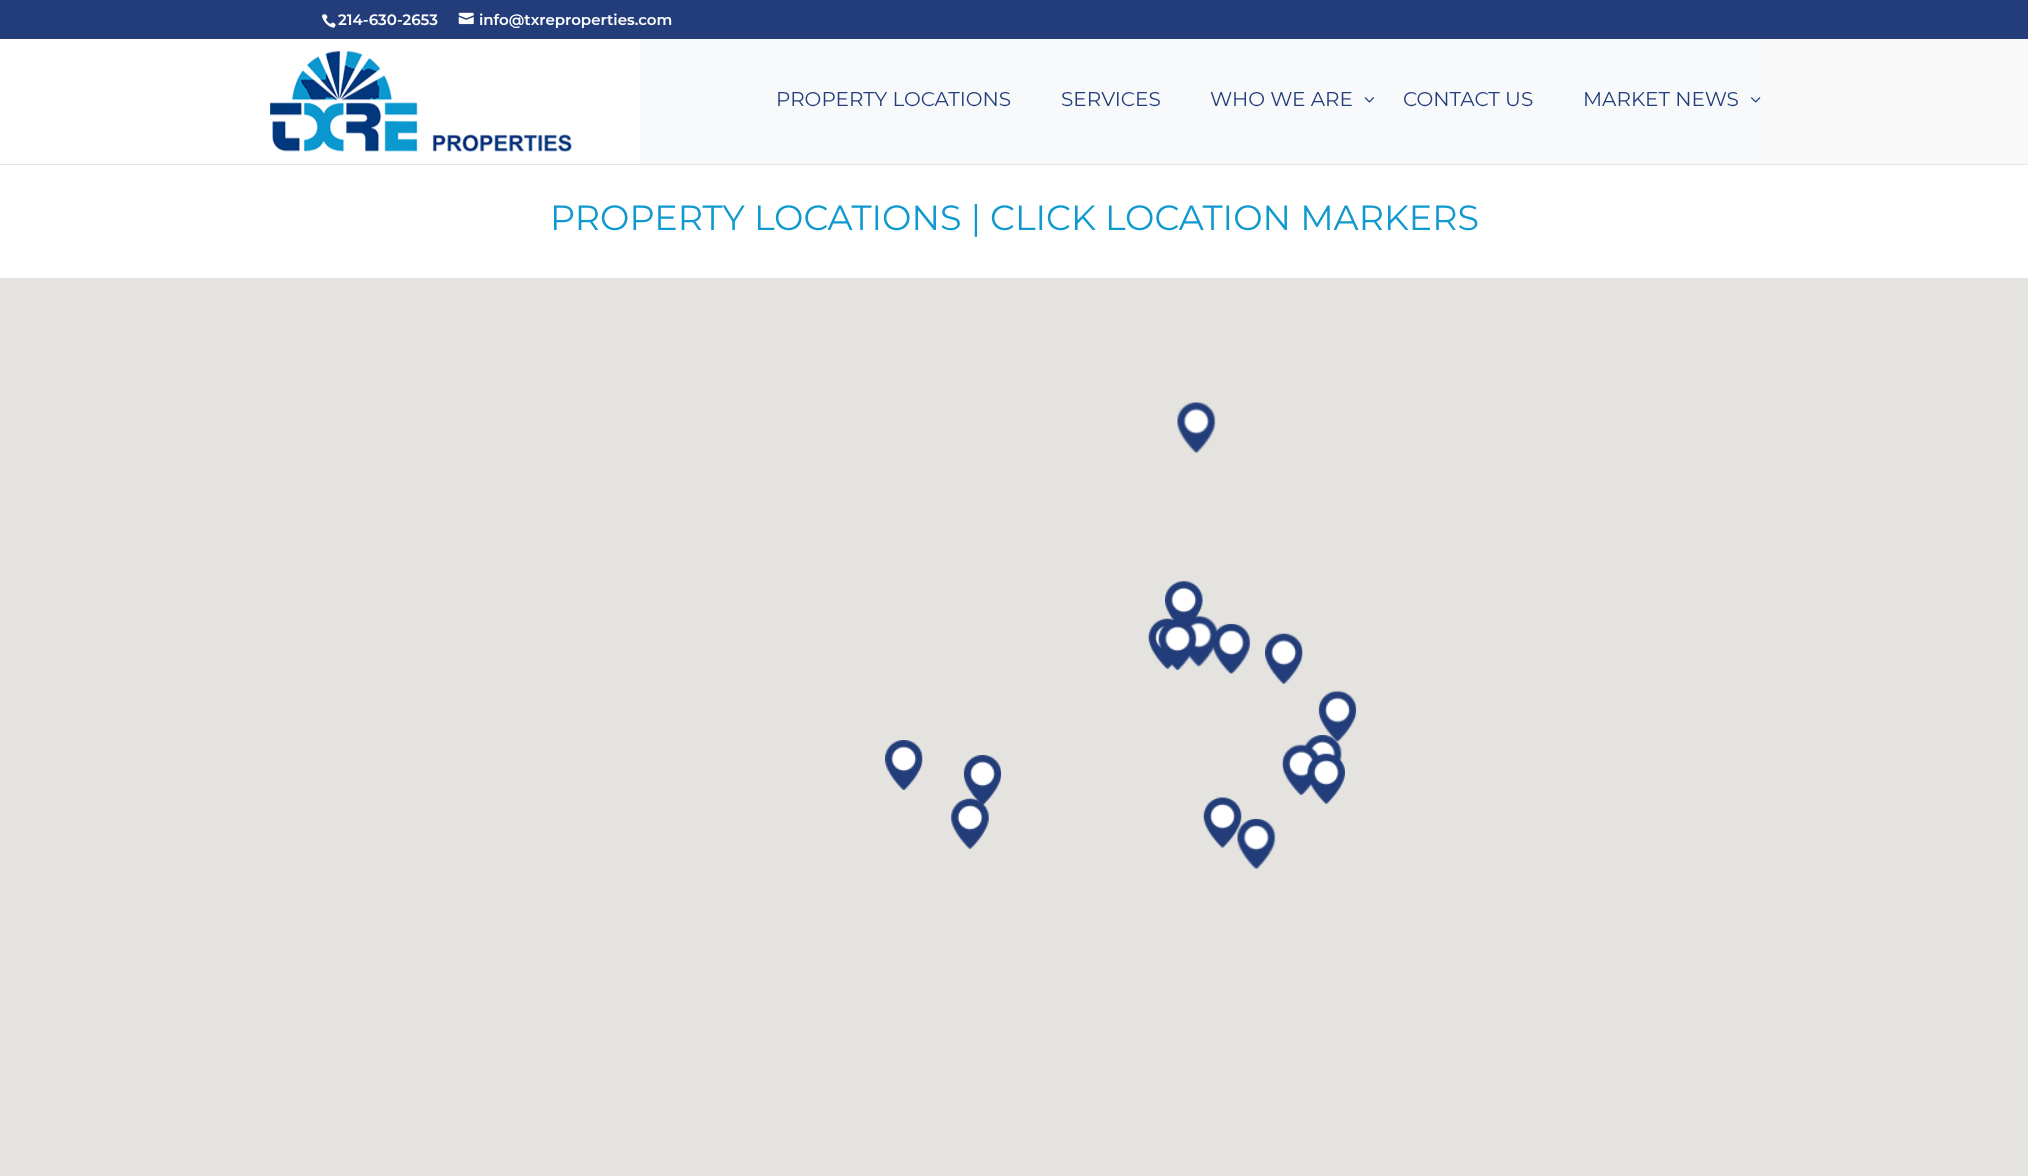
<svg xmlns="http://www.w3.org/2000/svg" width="2028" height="1176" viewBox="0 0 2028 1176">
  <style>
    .t1 { font: 600 15px Montserrat; fill: #fff; }
    .t2 { font: 20px Montserrat; fill: #223d79; }
    .t3 { font: 35px Montserrat; fill: #1099ce; }
  </style>
  <rect width="100%" height="100%" fill="#fff"/>
  <rect x="0" y="0" width="2028" height="39" fill="#223d79"/>
  <image x="321" y="14" width="15" height="14" href="images/1.png"/>
  <text x="338" y="25" class="t1">214-630-2653</text>
  <image x="458" y="12" width="16" height="13" href="images/2.png"/>
  <text x="479" y="25" class="t1">info@txreproperties.com</text>
  <path d="M0 164V165H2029V40V164Z" fill="#e6e6e6"/>
  <rect x="640" y="39" width="1125" height="125" fill="#f8f9fa"/>
  <image x="270" y="51" width="302" height="101" href="images/3.png"/>
  <text x="776" y="106" class="t2">PROPERTY LOCATIONS</text>
  <text x="1061" y="106" class="t2">SERVICES</text>
  <text x="1210" y="106" class="t2">WHO WE ARE</text>
  <image x="1364" y="97" width="10" height="6" href="images/4.png"/>
  <text x="1403" y="106" class="t2">CONTACT US</text>
  <text x="1583" y="106" class="t2">MARKET NEWS</text>
  <image x="1751" y="97" width="10" height="6" href="images/5.png"/>
  <rect x="1765" y="39" width="263" height="125" fill="#f9f9fa"/>
  <text x="550" y="230" class="t3">PROPERTY LOCATIONS | CLICK LOCATION MARKERS</text>
  <rect x="0" y="278" width="2028" height="898" fill="#e5e3df"/>
  <image x="1177" y="402" width="39" height="51" href="images/6.png"/>
  <image x="1165" y="581" width="38" height="43" href="images/7.png"/>
  <image x="1148" y="618" width="31" height="51" href="images/8.png"/>
  <image x="1183" y="615" width="35" height="52" href="images/9.png"/>
  <image x="1158" y="620" width="39" height="50" href="images/10.png"/>
  <image x="1212" y="623" width="39" height="51" href="images/11.png"/>
  <image x="1265" y="633" width="38" height="51" href="images/12.png"/>
  <image x="1318" y="690" width="39" height="52" href="images/13.png"/>
  <image x="885" y="740" width="38" height="50" href="images/14.png"/>
  <image x="1304" y="735" width="38" height="27" href="images/16.png"/>
  <image x="1282" y="744" width="37" height="52" href="images/15.png"/>
  <image x="963" y="755" width="39" height="50" href="images/17.png"/>
  <image x="1307" y="753" width="38" height="51" href="images/18.png"/>
  <image x="951" y="798" width="38" height="51" href="images/19.png"/>
  <image x="1203" y="797" width="39" height="51" href="images/20.png"/>
  <image x="1237" y="818" width="39" height="51" href="images/21.png"/>
</svg>
